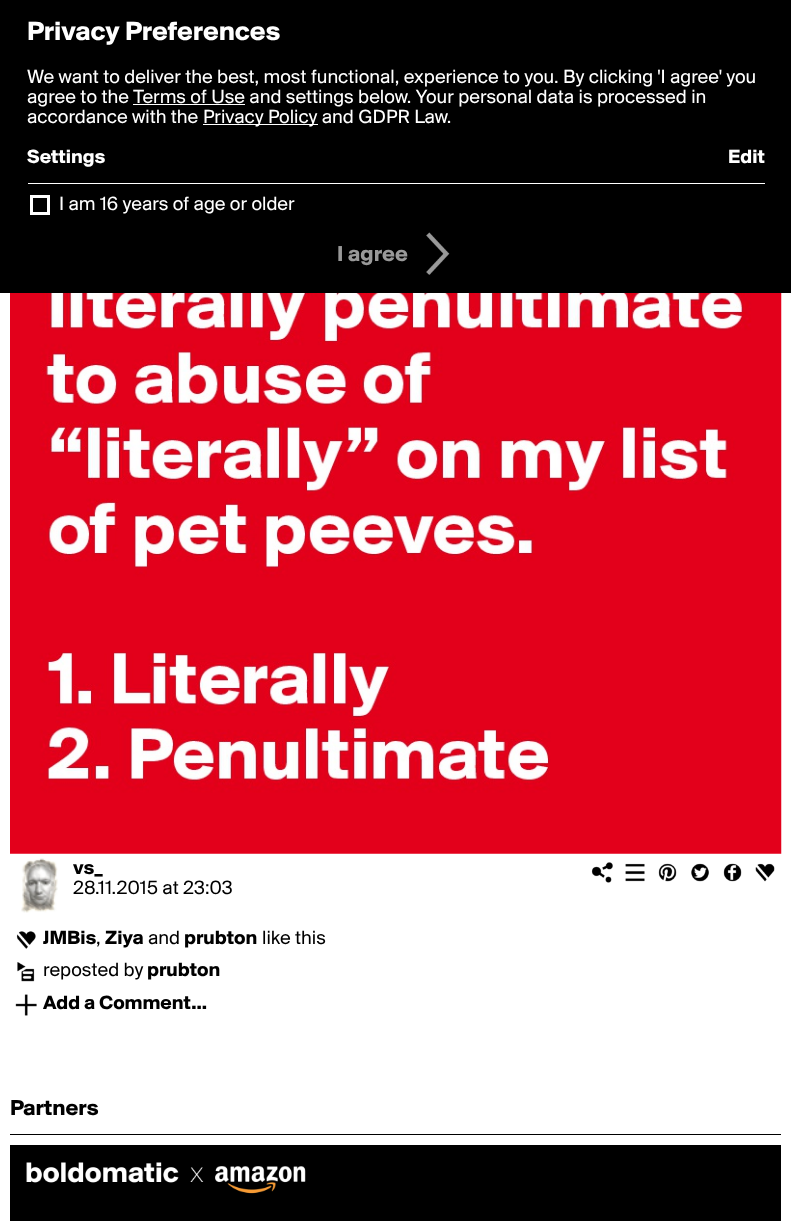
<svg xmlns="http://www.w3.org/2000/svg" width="791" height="1221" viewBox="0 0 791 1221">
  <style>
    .t1 { font: bold 27.5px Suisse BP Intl; fill: #fff; }
    .t2 { font: 20px Suisse BP Intl; fill: #fff; }
    .t3 { font: bold 20px Suisse BP Intl; fill: #fff; }
    .t4 { font: bold 22.5px Suisse BP Intl; fill: #999; }
    .t5 { font: bold 20px Suisse BP Intl; fill: #000; }
    .t6 { font: 20px Suisse BP Intl; fill: #000; }
    .t7 { font: bold 22.5px Suisse BP Intl; fill: #000; }
  </style>
  <rect width="100%" height="100%" fill="#fff"/>
  <rect x="0" y="0" width="791" height="293" fill="#000"/>
  <text x="27" y="40" class="t1">Privacy Preferences</text>
  <text x="27" y="83" class="t2">We want to deliver the best, most functional, experience to you. By clicking 'I agree' you</text>
  <text x="27" y="103" class="t2">agree to the Terms of Use and settings below. Your personal data is processed in</text>
  <rect x="133" y="104" width="112" height="1" fill="#fff"/>
  <text x="27" y="123" class="t2">accordance with the</text>
  <rect x="203" y="124" width="115" height="1" fill="#fff"/>
  <text x="203" y="123" class="t2">Privacy Policy and GDPR Law.</text>
  <text x="27" y="163" class="t3">Settings</text>
  <text x="728" y="163" class="t3">Edit</text>
  <rect x="28" y="183" width="737" height="1" fill="#fff"/>
  <rect x="31.5" y="196.5" width="17" height="17" fill="none" stroke="#fff" stroke-width="3"/>
  <text x="59" y="210" class="t2">I am 16 years of age or older</text>
  <text x="337" y="261" class="t4">I agree</text>
  <image x="426" y="232" width="24" height="43" href="images/1.png"/>
  <image x="10" y="293" width="772" height="561" href="images/2.png"/>
  <image x="18" y="858" width="40" height="55" href="images/3.png"/>
  <text x="73" y="874" class="t5">vs_</text>
  <text x="73" y="894" class="t6">28.11.2015 at 23:03</text>
  <image x="591" y="862" width="22" height="21" href="images/4.png"/>
  <image x="625" y="863" width="20" height="19" href="images/5.png"/>
  <image x="658" y="863" width="19" height="19" href="images/6.png"/>
  <image x="691" y="863" width="18" height="19" href="images/7.png"/>
  <image x="723" y="863" width="19" height="19" href="images/8.png"/>
  <image x="755" y="863" width="20" height="19" href="images/9.png"/>
  <image x="16" y="931" width="20" height="18" href="images/10.png"/>
  <text x="43" y="944" class="t5">JMBis</text>
  <text x="96" y="944" class="t6">,</text>
  <text x="105" y="944" class="t5">Ziya</text>
  <text x="148" y="944" class="t6">and</text>
  <text x="184" y="944" class="t5">prubton</text>
  <text x="262" y="944" class="t6">like this</text>
  <image x="17" y="962" width="18" height="20" href="images/11.png"/>
  <text x="43" y="976" class="t6">reposted by</text>
  <text x="147" y="976" class="t5">prubton</text>
  <image x="15" y="994" width="22" height="22" href="images/12.png"/>
  <text x="43" y="1009" class="t5">Add a Comment...</text>
  <rect x="10" y="1134" width="771" height="1" fill="#000"/>
  <text x="10" y="1115" class="t7">Partners</text>
  <rect x="10" y="1145" width="771" height="76" fill="#000"/>
  <image x="26" y="1162" width="280" height="32" href="images/13.png"/>
</svg>
